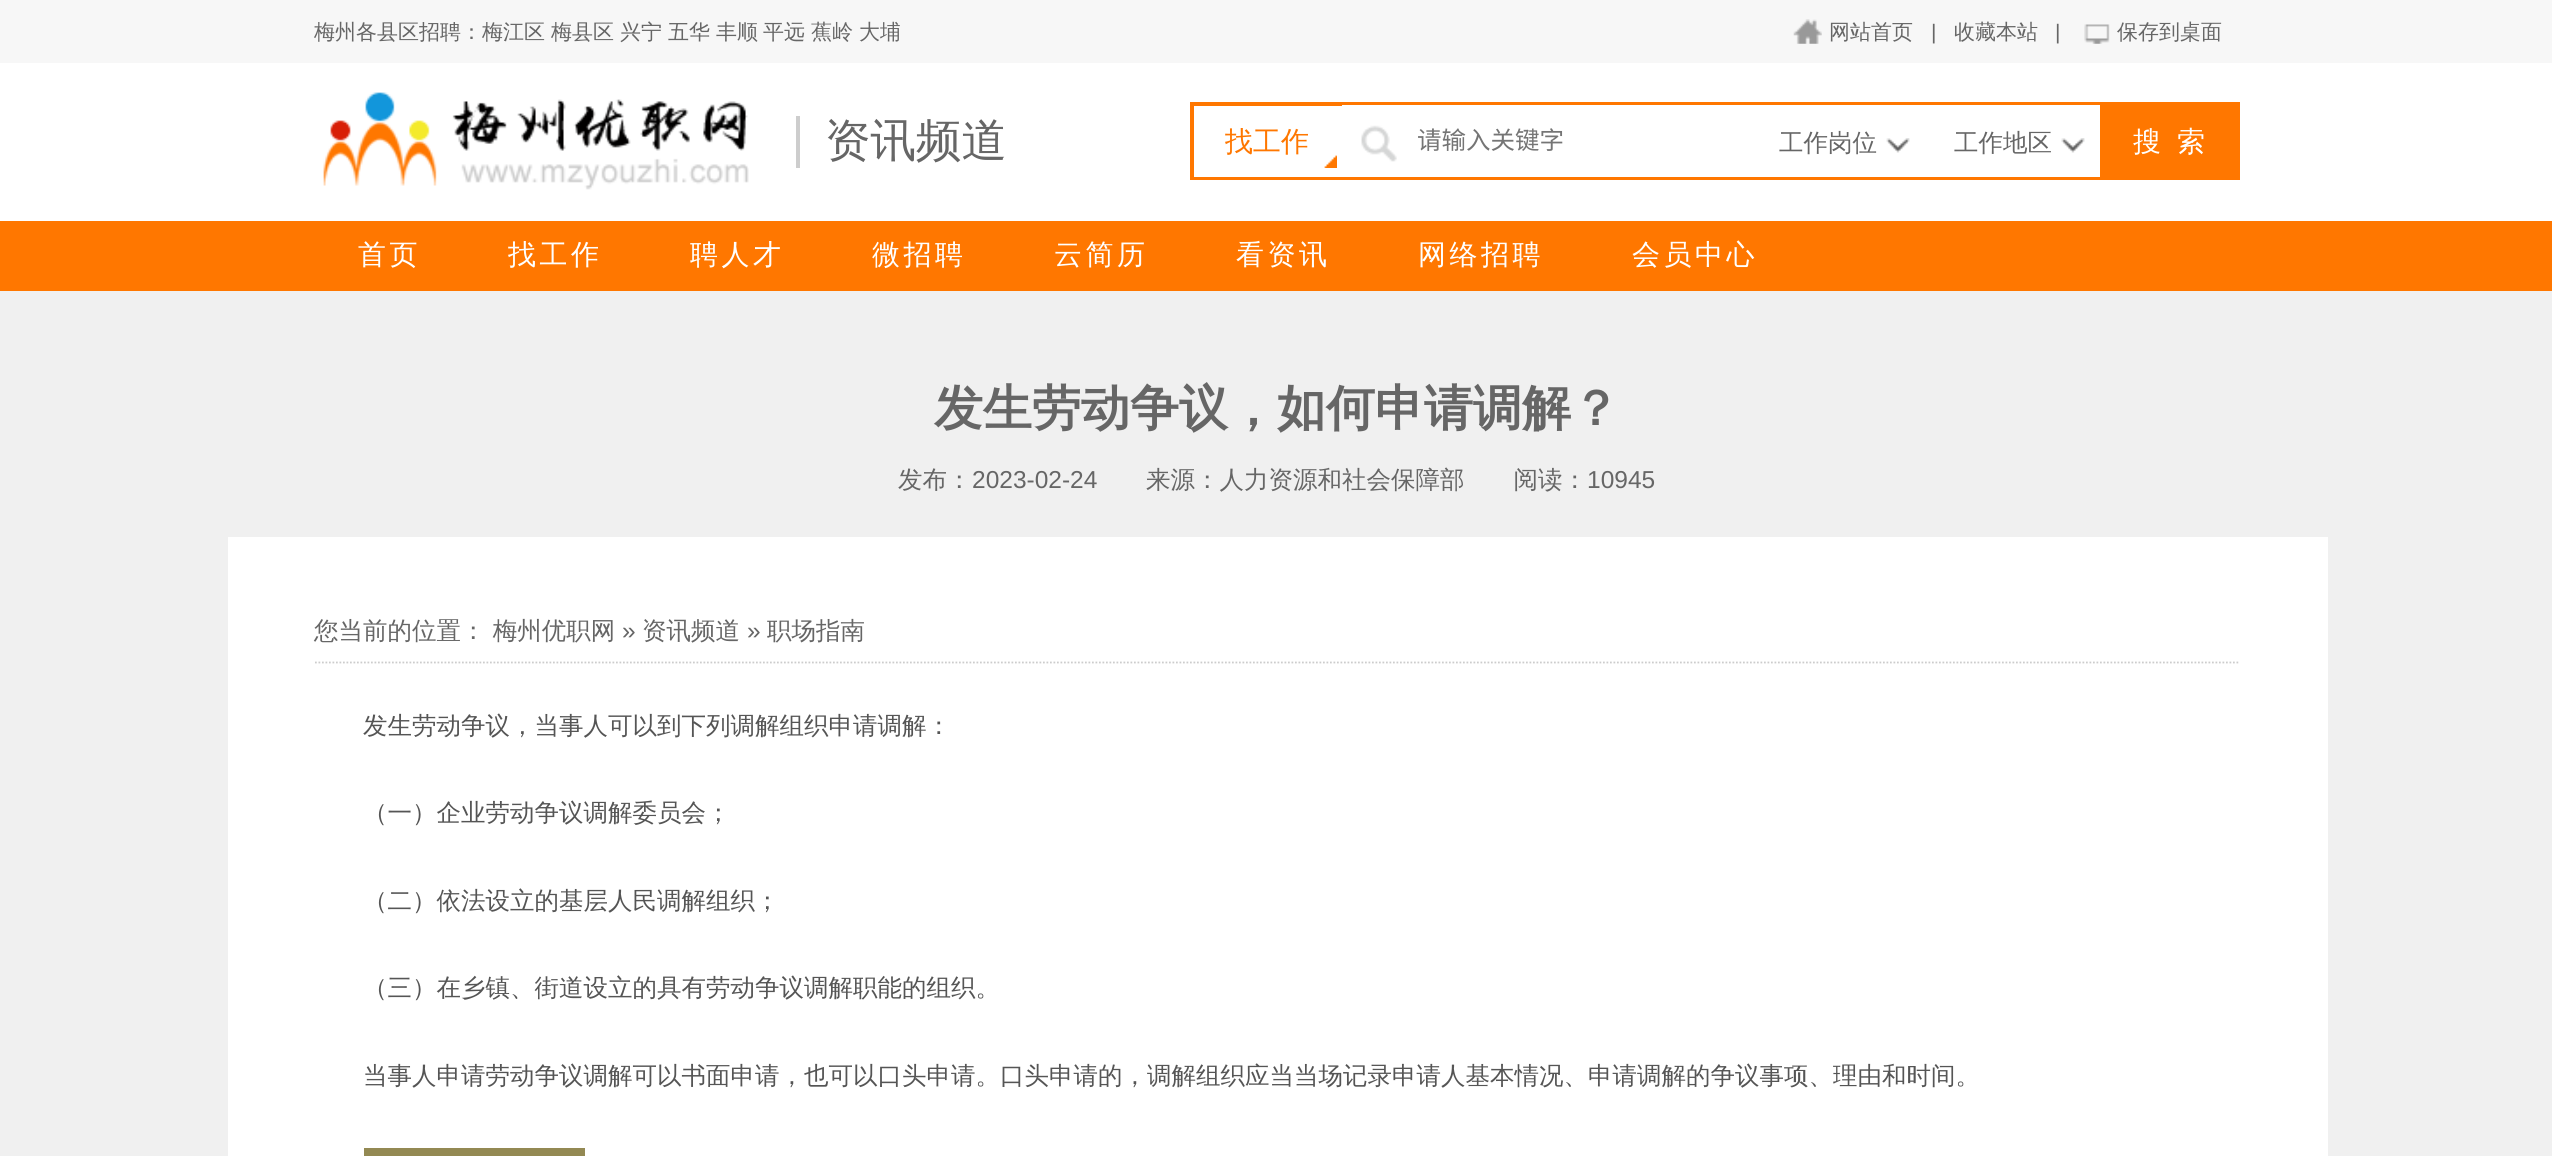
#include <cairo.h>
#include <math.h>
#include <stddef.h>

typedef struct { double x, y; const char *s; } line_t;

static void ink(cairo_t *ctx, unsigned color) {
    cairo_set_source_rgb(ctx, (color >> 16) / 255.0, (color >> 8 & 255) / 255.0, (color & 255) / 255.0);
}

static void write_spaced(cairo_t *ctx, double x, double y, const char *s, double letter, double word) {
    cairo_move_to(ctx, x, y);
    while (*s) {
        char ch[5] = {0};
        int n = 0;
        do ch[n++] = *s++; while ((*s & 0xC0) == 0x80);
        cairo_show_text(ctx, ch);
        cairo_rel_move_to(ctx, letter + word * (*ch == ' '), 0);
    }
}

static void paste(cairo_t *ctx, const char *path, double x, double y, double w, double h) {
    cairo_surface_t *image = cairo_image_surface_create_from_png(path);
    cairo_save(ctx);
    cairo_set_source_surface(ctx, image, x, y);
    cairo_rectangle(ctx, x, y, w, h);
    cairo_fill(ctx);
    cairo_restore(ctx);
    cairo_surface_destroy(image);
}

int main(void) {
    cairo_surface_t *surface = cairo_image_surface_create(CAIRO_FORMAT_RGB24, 2552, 1156);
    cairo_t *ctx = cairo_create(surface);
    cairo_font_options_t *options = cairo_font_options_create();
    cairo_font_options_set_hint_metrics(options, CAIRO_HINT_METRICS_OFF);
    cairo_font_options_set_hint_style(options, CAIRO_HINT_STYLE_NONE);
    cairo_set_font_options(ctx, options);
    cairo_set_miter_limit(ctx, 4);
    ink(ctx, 0xF0F0F0);
    cairo_paint(ctx);
    ink(ctx, 0xF7F7F7);
    cairo_rectangle(ctx, 0, 0, 2552, 63);
    cairo_fill(ctx);
    cairo_select_font_face(ctx, "WenQuanYi Zen Hei Medium", CAIRO_FONT_SLANT_NORMAL, CAIRO_FONT_WEIGHT_NORMAL);
    cairo_set_font_size(ctx, 21);
    ink(ctx, 0x666666);
    {
        static const line_t items[] = {
            {314, 39, "梅州各县区招聘：梅江区"},
            {551, 39, "梅县区"},
            {620, 39, "兴宁"},
            {668, 39, "五华"},
            {716, 39, "丰顺"},
            {763, 39, "平远"},
            {811, 39, "蕉岭"},
            {859, 39, "大埔"},
        };
        for (size_t i = 0; i < sizeof items / sizeof *items; i++) {
            cairo_move_to(ctx, items[i].x, items[i].y);
            cairo_show_text(ctx, items[i].s);
        }
    }
    paste(ctx, "media/1.png", 1793, 19, 29, 25);
    cairo_move_to(ctx, 1829, 39);
    cairo_show_text(ctx, "网站首页");
    cairo_select_font_face(ctx, "Liberation Sans", CAIRO_FONT_SLANT_NORMAL, CAIRO_FONT_WEIGHT_NORMAL);
    cairo_move_to(ctx, 1931, 39);
    cairo_show_text(ctx, "|");
    cairo_select_font_face(ctx, "WenQuanYi Zen Hei Medium", CAIRO_FONT_SLANT_NORMAL, CAIRO_FONT_WEIGHT_NORMAL);
    cairo_move_to(ctx, 1954, 39);
    cairo_show_text(ctx, "收藏本站");
    cairo_select_font_face(ctx, "Liberation Sans", CAIRO_FONT_SLANT_NORMAL, CAIRO_FONT_WEIGHT_NORMAL);
    cairo_move_to(ctx, 2055, 39);
    cairo_show_text(ctx, "|");
    paste(ctx, "media/2.png", 2084, 24, 26, 20);
    cairo_select_font_face(ctx, "WenQuanYi Zen Hei Medium", CAIRO_FONT_SLANT_NORMAL, CAIRO_FONT_WEIGHT_NORMAL);
    cairo_move_to(ctx, 2117, 39);
    cairo_show_text(ctx, "保存到桌面");
    ink(ctx, 0xFFFFFF);
    cairo_rectangle(ctx, 0, 63, 2552, 158);
    cairo_fill(ctx);
    paste(ctx, "media/3.png", 323, 92, 426, 98);
    ink(ctx, 0xCDCDCD);
    cairo_rectangle(ctx, 796, 116, 4, 52);
    cairo_fill(ctx);
    cairo_set_font_size(ctx, 45.5);
    ink(ctx, 0x666666);
    cairo_move_to(ctx, 825, 156);
    cairo_show_text(ctx, "资讯频道");
    ink(ctx, 0xFF7700);
    cairo_rectangle(ctx, 1190, 102, 1050, 78);
    cairo_fill(ctx);
    ink(ctx, 0xFFFFFF);
    cairo_rectangle(ctx, 1194, 106, 148, 71);
    cairo_fill(ctx);
    cairo_set_font_size(ctx, 28);
    ink(ctx, 0xFF7700);
    cairo_move_to(ctx, 1225, 151);
    cairo_show_text(ctx, "找工作");
    paste(ctx, "media/4.png", 1324, 155, 13, 13);
    ink(ctx, 0xFFFFFF);
    cairo_rectangle(ctx, 1342, 105, 758, 72);
    cairo_fill(ctx);
    paste(ctx, "media/5.png", 1361, 125, 36, 37);
    cairo_select_font_face(ctx, "Noto Sans CJK SC", CAIRO_FONT_SLANT_NORMAL, CAIRO_FONT_WEIGHT_NORMAL);
    cairo_set_font_size(ctx, 24.5);
    ink(ctx, 0x757575);
    cairo_move_to(ctx, 1417, 149);
    cairo_show_text(ctx, "请输入关键字");
    cairo_select_font_face(ctx, "WenQuanYi Zen Hei Medium", CAIRO_FONT_SLANT_NORMAL, CAIRO_FONT_WEIGHT_NORMAL);
    ink(ctx, 0x666666);
    cairo_move_to(ctx, 1779, 151);
    cairo_show_text(ctx, "工作岗位");
    paste(ctx, "media/6.png", 1886, 138, 24, 15);
    cairo_move_to(ctx, 1954, 151);
    cairo_show_text(ctx, "工作地区");
    paste(ctx, "media/7.png", 2061, 138, 24, 15);
    cairo_set_font_size(ctx, 28);
    ink(ctx, 0xFFFFFF);
    cairo_move_to(ctx, 2133, 151);
    cairo_show_text(ctx, "搜");
    cairo_move_to(ctx, 2177, 151);
    cairo_show_text(ctx, "索");
    ink(ctx, 0xFF7700);
    cairo_rectangle(ctx, 0, 221, 2552, 70);
    cairo_fill(ctx);
    ink(ctx, 0xFFFFFF);
    {
        static const line_t items[] = {
            {358, 264, "首页"},
            {508, 264, "找工作"},
            {690, 264, "聘人才"},
            {872, 264, "微招聘"},
            {1054, 264, "云简历"},
            {1236, 264, "看资讯"},
            {1418, 264, "网络招聘"},
            {1632, 264, "会员中心"},
        };
        for (size_t i = 0; i < sizeof items / sizeof *items; i++) {
            write_spaced(ctx, items[i].x, items[i].y, items[i].s, 3.5, 0);
        }
    }
    cairo_select_font_face(ctx, "WenQuanYi Zen Hei", CAIRO_FONT_SLANT_NORMAL, CAIRO_FONT_WEIGHT_BOLD);
    cairo_set_font_size(ctx, 49);
    ink(ctx, 0x666666);
    cairo_move_to(ctx, 934, 425);
    cairo_show_text(ctx, "发生劳动争议，如何申请调解？");
    cairo_select_font_face(ctx, "WenQuanYi Zen Hei Medium", CAIRO_FONT_SLANT_NORMAL, CAIRO_FONT_WEIGHT_NORMAL);
    cairo_set_font_size(ctx, 24.5);
    cairo_move_to(ctx, 898, 488);
    cairo_show_text(ctx, "发布：");
    cairo_select_font_face(ctx, "Liberation Sans", CAIRO_FONT_SLANT_NORMAL, CAIRO_FONT_WEIGHT_NORMAL);
    cairo_move_to(ctx, 972, 488);
    cairo_show_text(ctx, "2023-02-24");
    cairo_select_font_face(ctx, "WenQuanYi Zen Hei Medium", CAIRO_FONT_SLANT_NORMAL, CAIRO_FONT_WEIGHT_NORMAL);
    cairo_move_to(ctx, 1146, 488);
    cairo_show_text(ctx, "来源：人力资源和社会保障部　　阅读：");
    cairo_select_font_face(ctx, "Liberation Sans", CAIRO_FONT_SLANT_NORMAL, CAIRO_FONT_WEIGHT_NORMAL);
    cairo_move_to(ctx, 1587, 488);
    cairo_show_text(ctx, "10945");
    ink(ctx, 0xFFFFFF);
    cairo_rectangle(ctx, 228, 537, 2100, 619);
    cairo_fill(ctx);
    cairo_new_path(ctx);
    cairo_move_to(ctx, 315, 662.5);
    cairo_line_to(ctx, 2240, 662.5);
    ink(ctx, 0xCCCCCC);
    cairo_set_line_width(ctx, 1.8);
    cairo_set_dash(ctx, (double[]){1.75, 1.75}, 2, 0);
    cairo_stroke(ctx);
    cairo_select_font_face(ctx, "WenQuanYi Zen Hei Medium", CAIRO_FONT_SLANT_NORMAL, CAIRO_FONT_WEIGHT_NORMAL);
    ink(ctx, 0x666666);
    cairo_move_to(ctx, 314, 639);
    cairo_show_text(ctx, "您当前的位置： 梅州优职网");
    cairo_select_font_face(ctx, "Liberation Sans", CAIRO_FONT_SLANT_NORMAL, CAIRO_FONT_WEIGHT_NORMAL);
    cairo_move_to(ctx, 622, 639);
    cairo_show_text(ctx, "»");
    cairo_select_font_face(ctx, "WenQuanYi Zen Hei Medium", CAIRO_FONT_SLANT_NORMAL, CAIRO_FONT_WEIGHT_NORMAL);
    cairo_move_to(ctx, 642, 639);
    cairo_show_text(ctx, "资讯频道");
    cairo_select_font_face(ctx, "Liberation Sans", CAIRO_FONT_SLANT_NORMAL, CAIRO_FONT_WEIGHT_NORMAL);
    cairo_move_to(ctx, 747, 639);
    cairo_show_text(ctx, "»");
    cairo_select_font_face(ctx, "WenQuanYi Zen Hei Medium", CAIRO_FONT_SLANT_NORMAL, CAIRO_FONT_WEIGHT_NORMAL);
    cairo_move_to(ctx, 767, 639);
    cairo_show_text(ctx, "职场指南");
    ink(ctx, 0x555555);
    {
        static const line_t items[] = {
            {363, 734, "发生劳动争议，当事人可以到下列调解组织申请调解："},
            {363, 821, "（一）企业劳动争议调解委员会；"},
            {363, 909, "（二）依法设立的基层人民调解组织；"},
            {363, 996, "（三）在乡镇、街道设立的具有劳动争议调解职能的组织。"},
            {363, 1084, "当事人申请劳动争议调解可以书面申请，也可以口头申请。口头申请的，调解组织应当当场记录申请人基本情况、申请调解的争议事项、理由和时间。"},
        };
        for (size_t i = 0; i < sizeof items / sizeof *items; i++) {
            cairo_move_to(ctx, items[i].x, items[i].y);
            cairo_show_text(ctx, items[i].s);
        }
    }
    ink(ctx, 0x938953);
    cairo_rectangle(ctx, 364, 1148, 221, 8);
    cairo_fill(ctx);
    cairo_surface_write_to_png(surface, "image.png");
    cairo_font_options_destroy(options);
    cairo_destroy(ctx);
    cairo_surface_destroy(surface);
    return 0;
}
